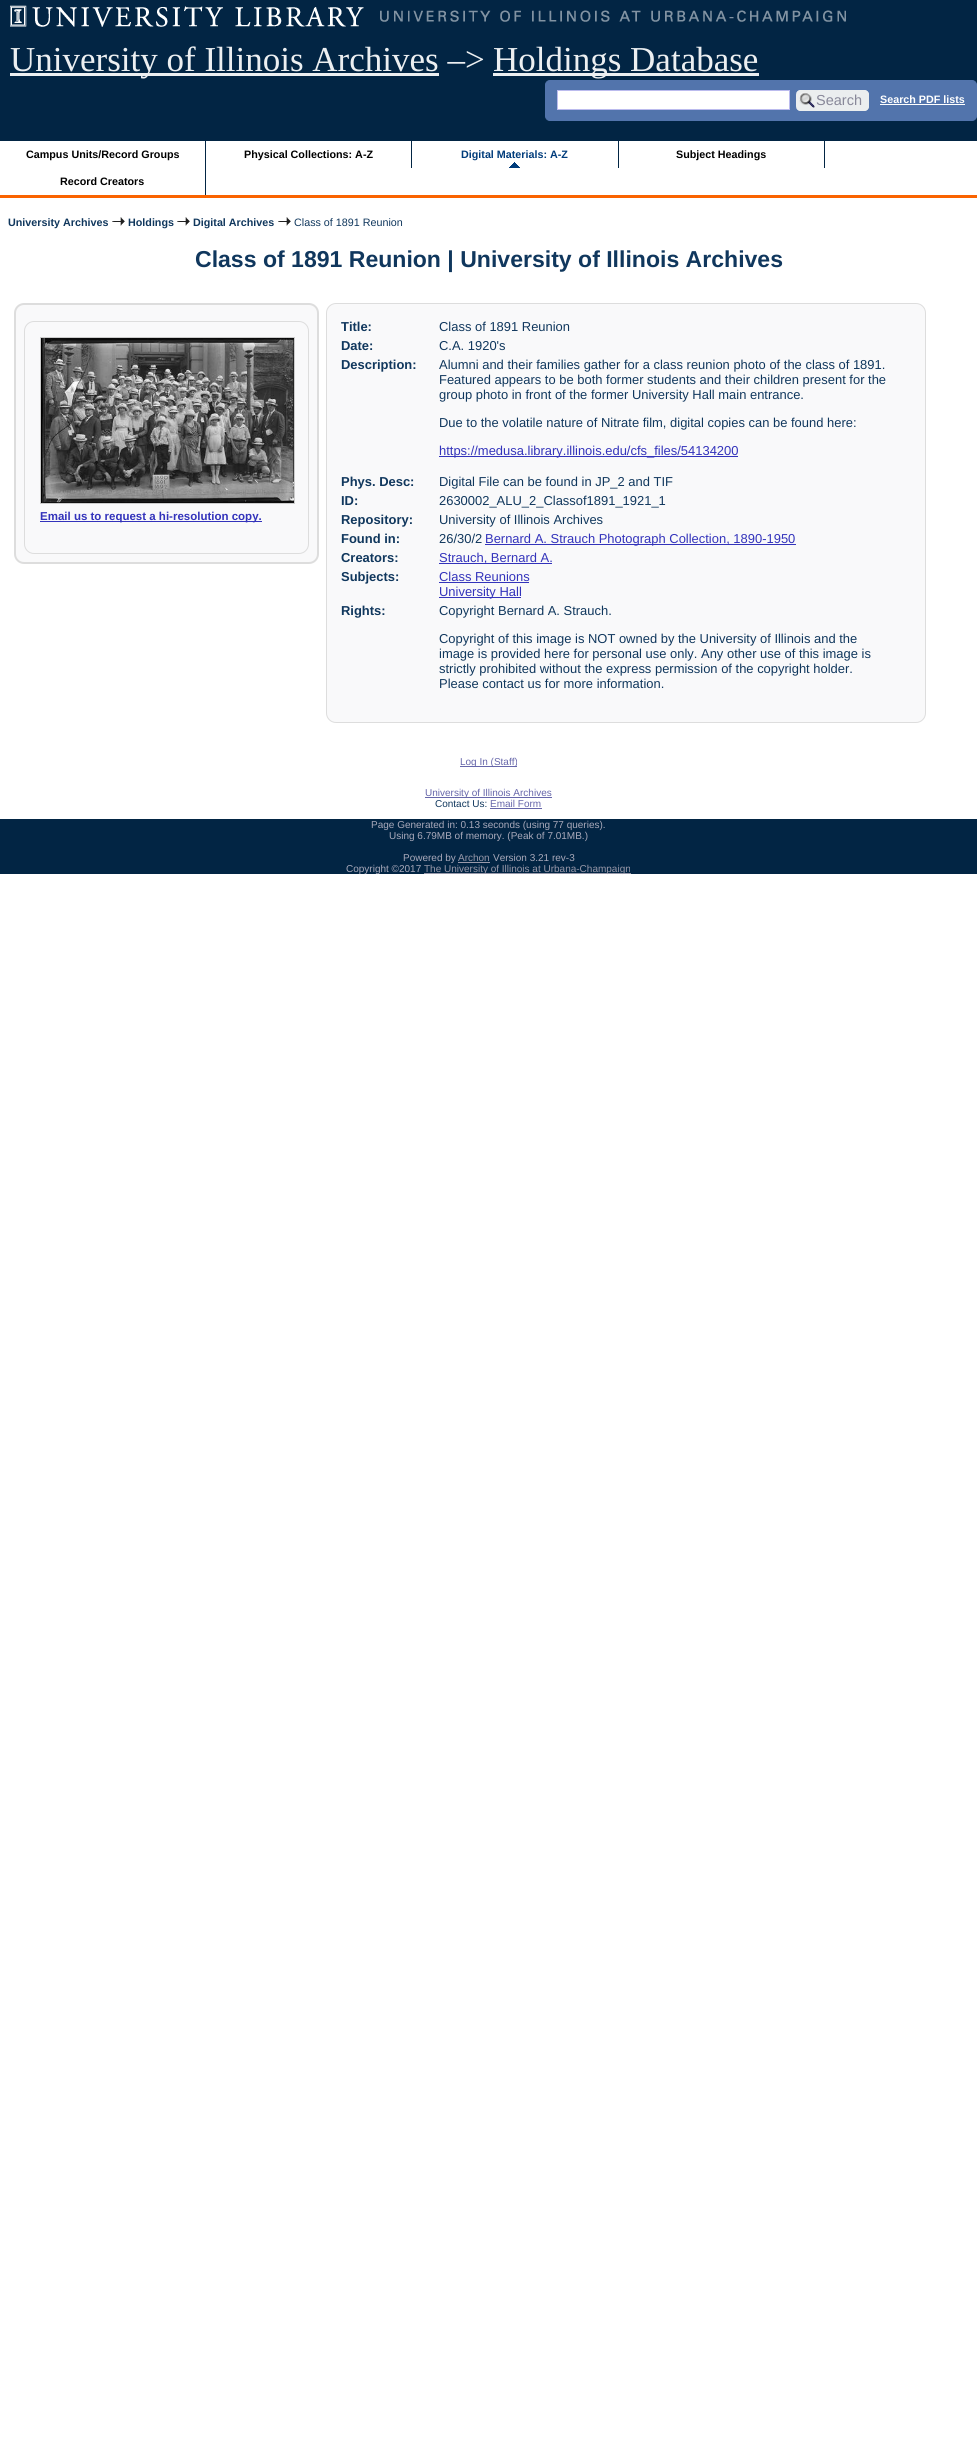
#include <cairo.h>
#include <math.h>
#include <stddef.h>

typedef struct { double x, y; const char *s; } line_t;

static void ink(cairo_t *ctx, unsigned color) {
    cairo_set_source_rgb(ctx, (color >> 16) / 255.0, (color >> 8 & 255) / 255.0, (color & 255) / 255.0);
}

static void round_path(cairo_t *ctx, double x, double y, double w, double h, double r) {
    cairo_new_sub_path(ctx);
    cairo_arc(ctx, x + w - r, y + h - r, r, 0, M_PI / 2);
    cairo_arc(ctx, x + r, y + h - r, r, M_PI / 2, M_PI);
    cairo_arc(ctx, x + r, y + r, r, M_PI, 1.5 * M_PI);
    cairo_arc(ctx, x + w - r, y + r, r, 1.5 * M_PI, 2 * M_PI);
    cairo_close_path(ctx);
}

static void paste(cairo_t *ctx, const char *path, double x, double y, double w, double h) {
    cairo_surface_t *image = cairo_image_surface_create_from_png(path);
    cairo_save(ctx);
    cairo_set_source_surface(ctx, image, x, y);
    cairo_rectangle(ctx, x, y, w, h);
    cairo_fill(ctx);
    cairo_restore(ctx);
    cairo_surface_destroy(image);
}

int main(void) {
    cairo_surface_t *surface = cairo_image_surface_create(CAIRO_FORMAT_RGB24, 977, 2444);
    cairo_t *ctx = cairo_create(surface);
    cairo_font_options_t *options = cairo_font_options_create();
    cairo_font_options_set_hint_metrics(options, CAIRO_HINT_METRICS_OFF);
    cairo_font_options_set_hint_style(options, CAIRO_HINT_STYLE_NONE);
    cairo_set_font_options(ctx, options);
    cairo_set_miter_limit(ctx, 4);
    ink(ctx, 0xFFFFFF);
    cairo_paint(ctx);
    ink(ctx, 0x022544);
    cairo_rectangle(ctx, 0, 0, 977, 141);
    cairo_fill(ctx);
    paste(ctx, "media/1.png", 10, 5, 836, 22);
    ink(ctx, 0xFA6300);
    cairo_rectangle(ctx, 0, 195, 977, 3);
    cairo_fill(ctx);
    ink(ctx, 0xECEFF1);
    cairo_rectangle(ctx, 10, 73, 429, 3);
    cairo_fill(ctx);
    cairo_select_font_face(ctx, "Liberation Serif", CAIRO_FONT_SLANT_NORMAL, CAIRO_FONT_WEIGHT_NORMAL);
    cairo_set_font_size(ctx, 35);
    cairo_move_to(ctx, 10, 71);
    cairo_show_text(ctx, "University of Illinois Archives –>");
    cairo_rectangle(ctx, 493, 73, 266, 3);
    cairo_fill(ctx);
    cairo_move_to(ctx, 493, 71);
    cairo_show_text(ctx, "Holdings Database");
    ink(ctx, 0x5274AC);
    round_path(ctx, 545.5, 80.5, 431, 40, 4.5);
    cairo_fill_preserve(ctx);
    cairo_set_line_width(ctx, 1);
    cairo_stroke(ctx);
    ink(ctx, 0xFFFFFF);
    cairo_rectangle(ctx, 557.5, 90.5, 232, 19);
    cairo_fill_preserve(ctx);
    ink(ctx, 0xBBBBEE);
    cairo_stroke(ctx);
    ink(ctx, 0xEBEEEF);
    round_path(ctx, 796, 90, 73, 21, 5);
    cairo_fill(ctx);
    paste(ctx, "media/2.png", 799, 92, 16, 16);
    cairo_set_fill_rule(ctx, CAIRO_FILL_RULE_EVEN_ODD);
    cairo_new_path(ctx);
    cairo_move_to(ctx, 801, 90);
    cairo_line_to(ctx, 864, 90);
    cairo_curve_to(ctx, 867, 90, 869, 92, 869, 95);
    cairo_line_to(ctx, 869, 106);
    cairo_curve_to(ctx, 869, 109, 867, 111, 864, 111);
    cairo_line_to(ctx, 801, 111);
    cairo_curve_to(ctx, 798, 111, 796, 109, 796, 106);
    cairo_line_to(ctx, 796, 95);
    cairo_curve_to(ctx, 796, 92, 798, 90, 801, 90);
    cairo_close_path(ctx);
    cairo_move_to(ctx, 801, 91);
    cairo_line_to(ctx, 864, 91);
    cairo_curve_to(ctx, 866, 91, 868, 93, 868, 95);
    cairo_line_to(ctx, 868, 106);
    cairo_curve_to(ctx, 868, 108, 866, 110, 864, 110);
    cairo_line_to(ctx, 801, 110);
    cairo_curve_to(ctx, 798, 110, 796, 108, 796, 106);
    cairo_line_to(ctx, 796, 95);
    cairo_curve_to(ctx, 796, 93, 798, 91, 801, 91);
    cairo_close_path(ctx);
    cairo_fill(ctx);
    cairo_select_font_face(ctx, "Liberation Sans", CAIRO_FONT_SLANT_NORMAL, CAIRO_FONT_WEIGHT_NORMAL);
    cairo_set_font_size(ctx, 14.5);
    ink(ctx, 0x888899);
    cairo_move_to(ctx, 816, 105);
    cairo_show_text(ctx, "Search");
    cairo_select_font_face(ctx, "Liberation Sans", CAIRO_FONT_SLANT_NORMAL, CAIRO_FONT_WEIGHT_BOLD);
    cairo_set_font_size(ctx, 10.75);
    ink(ctx, 0xFFFFFF);
    cairo_move_to(ctx, 880, 103);
    cairo_show_text(ctx, "Search PDF lists");
    cairo_rectangle(ctx, 880, 104, 85, 1);
    cairo_fill(ctx);
    ink(ctx, 0x022544);
    cairo_rectangle(ctx, 205, 141, 1, 54);
    cairo_fill(ctx);
    ink(ctx, 0x000000);
    cairo_move_to(ctx, 26, 158);
    cairo_show_text(ctx, "Campus Units/Record Groups");
    ink(ctx, 0x022544);
    cairo_rectangle(ctx, 411, 141, 1, 27);
    cairo_fill(ctx);
    ink(ctx, 0x000000);
    cairo_move_to(ctx, 244, 158);
    cairo_show_text(ctx, "Physical Collections: A-Z");
    paste(ctx, "media/3.png", 509, 162, 11, 6);
    ink(ctx, 0x022544);
    cairo_rectangle(ctx, 618, 141, 1, 27);
    cairo_fill(ctx);
    ink(ctx, 0x003C7B);
    cairo_move_to(ctx, 461, 158);
    cairo_show_text(ctx, "Digital Materials: A-Z");
    ink(ctx, 0x022544);
    cairo_rectangle(ctx, 824, 141, 1, 27);
    cairo_fill(ctx);
    ink(ctx, 0x000000);
    cairo_move_to(ctx, 676, 158);
    cairo_show_text(ctx, "Subject Headings");
    cairo_move_to(ctx, 60, 185);
    cairo_show_text(ctx, "Record Creators");
    ink(ctx, 0x10375D);
    cairo_move_to(ctx, 8, 226);
    cairo_show_text(ctx, "University Archives");
    paste(ctx, "media/4.png", 112, 217, 13, 9);
    cairo_move_to(ctx, 128, 226);
    cairo_show_text(ctx, "Holdings");
    paste(ctx, "media/4.png", 177, 217, 13, 9);
    cairo_move_to(ctx, 193, 226);
    cairo_show_text(ctx, "Digital Archives");
    paste(ctx, "media/4.png", 278, 217, 13, 9);
    cairo_select_font_face(ctx, "Liberation Sans", CAIRO_FONT_SLANT_NORMAL, CAIRO_FONT_WEIGHT_NORMAL);
    cairo_move_to(ctx, 294, 226);
    cairo_show_text(ctx, "Class of 1891 Reunion");
    cairo_select_font_face(ctx, "Liberation Sans", CAIRO_FONT_SLANT_NORMAL, CAIRO_FONT_WEIGHT_BOLD);
    cairo_set_font_size(ctx, 23.05);
    cairo_move_to(ctx, 195, 267);
    cairo_show_text(ctx, "Class of 1891 Reunion | University of Illinois Archives");
    ink(ctx, 0xF9F9FA);
    round_path(ctx, 15, 304, 303, 259, 9);
    cairo_fill_preserve(ctx);
    ink(ctx, 0xDDDDDD);
    cairo_set_line_width(ctx, 2);
    cairo_stroke(ctx);
    round_path(ctx, 24.5, 321.5, 284, 232, 9.5);
    cairo_set_line_width(ctx, 1);
    cairo_stroke(ctx);
    cairo_rectangle(ctx, 40.5, 337.5, 254, 166);
    ink(ctx, 0xCCCCCC);
    cairo_stroke(ctx);
    paste(ctx, "media/5.png", 41, 338, 253, 165);
    ink(ctx, 0x3333BB);
    cairo_rectangle(ctx, 40, 521, 222, 1);
    cairo_fill(ctx);
    cairo_set_font_size(ctx, 11.5);
    cairo_move_to(ctx, 40, 520);
    cairo_show_text(ctx, "Email us to request a hi-resolution copy.");
    ink(ctx, 0xF9F9FA);
    round_path(ctx, 326.5, 303.5, 599, 419, 9.5);
    cairo_fill_preserve(ctx);
    ink(ctx, 0xDDDDDD);
    cairo_stroke(ctx);
    cairo_set_font_size(ctx, 12.95);
    ink(ctx, 0x10375D);
    cairo_move_to(ctx, 341, 331);
    cairo_show_text(ctx, "Title:");
    cairo_select_font_face(ctx, "Liberation Sans", CAIRO_FONT_SLANT_NORMAL, CAIRO_FONT_WEIGHT_NORMAL);
    cairo_move_to(ctx, 439, 331);
    cairo_show_text(ctx, "Class of 1891 Reunion");
    cairo_select_font_face(ctx, "Liberation Sans", CAIRO_FONT_SLANT_NORMAL, CAIRO_FONT_WEIGHT_BOLD);
    cairo_move_to(ctx, 341, 350);
    cairo_show_text(ctx, "Date:");
    cairo_select_font_face(ctx, "Liberation Sans", CAIRO_FONT_SLANT_NORMAL, CAIRO_FONT_WEIGHT_NORMAL);
    cairo_move_to(ctx, 439, 350);
    cairo_show_text(ctx, "C.A. 1920's");
    cairo_select_font_face(ctx, "Liberation Sans", CAIRO_FONT_SLANT_NORMAL, CAIRO_FONT_WEIGHT_BOLD);
    cairo_move_to(ctx, 341, 369);
    cairo_show_text(ctx, "Description:");
    cairo_select_font_face(ctx, "Liberation Sans", CAIRO_FONT_SLANT_NORMAL, CAIRO_FONT_WEIGHT_NORMAL);
    {
        static const line_t items[] = {
            {439, 369, "Alumni and their families gather for a class reunion photo of the class of 1891."},
            {439, 384, "Featured appears to be both former students and their children present for the"},
            {439, 399, "group photo in front of the former University Hall main entrance."},
            {439, 427, "Due to the volatile nature of Nitrate film, digital copies can be found here:"},
        };
        for (size_t i = 0; i < sizeof items / sizeof *items; i++) {
            cairo_move_to(ctx, items[i].x, items[i].y);
            cairo_show_text(ctx, items[i].s);
        }
    }
    ink(ctx, 0x3333BB);
    cairo_rectangle(ctx, 439, 456, 299, 1);
    cairo_fill(ctx);
    cairo_move_to(ctx, 439, 455);
    cairo_show_text(ctx, "https://medusa.library.illinois.edu/cfs_files/54134200");
    cairo_select_font_face(ctx, "Liberation Sans", CAIRO_FONT_SLANT_NORMAL, CAIRO_FONT_WEIGHT_BOLD);
    ink(ctx, 0x10375D);
    cairo_move_to(ctx, 341, 486);
    cairo_show_text(ctx, "Phys. Desc:");
    cairo_select_font_face(ctx, "Liberation Sans", CAIRO_FONT_SLANT_NORMAL, CAIRO_FONT_WEIGHT_NORMAL);
    cairo_move_to(ctx, 439, 486);
    cairo_show_text(ctx, "Digital File can be found in JP_2 and TIF");
    cairo_select_font_face(ctx, "Liberation Sans", CAIRO_FONT_SLANT_NORMAL, CAIRO_FONT_WEIGHT_BOLD);
    cairo_move_to(ctx, 341, 505);
    cairo_show_text(ctx, "ID:");
    cairo_select_font_face(ctx, "Liberation Sans", CAIRO_FONT_SLANT_NORMAL, CAIRO_FONT_WEIGHT_NORMAL);
    cairo_move_to(ctx, 439, 505);
    cairo_show_text(ctx, "2630002_ALU_2_Classof1891_1921_1");
    cairo_select_font_face(ctx, "Liberation Sans", CAIRO_FONT_SLANT_NORMAL, CAIRO_FONT_WEIGHT_BOLD);
    cairo_move_to(ctx, 341, 524);
    cairo_show_text(ctx, "Repository:");
    cairo_select_font_face(ctx, "Liberation Sans", CAIRO_FONT_SLANT_NORMAL, CAIRO_FONT_WEIGHT_NORMAL);
    cairo_move_to(ctx, 439, 524);
    cairo_show_text(ctx, "University of Illinois Archives");
    cairo_select_font_face(ctx, "Liberation Sans", CAIRO_FONT_SLANT_NORMAL, CAIRO_FONT_WEIGHT_BOLD);
    cairo_move_to(ctx, 341, 543);
    cairo_show_text(ctx, "Found in:");
    cairo_select_font_face(ctx, "Liberation Sans", CAIRO_FONT_SLANT_NORMAL, CAIRO_FONT_WEIGHT_NORMAL);
    cairo_move_to(ctx, 439, 543);
    cairo_show_text(ctx, "26/30/2");
    ink(ctx, 0x3333BB);
    cairo_rectangle(ctx, 485, 544, 311, 1);
    cairo_fill(ctx);
    cairo_move_to(ctx, 485, 543);
    cairo_show_text(ctx, "Bernard A. Strauch Photograph Collection, 1890-1950");
    cairo_select_font_face(ctx, "Liberation Sans", CAIRO_FONT_SLANT_NORMAL, CAIRO_FONT_WEIGHT_BOLD);
    ink(ctx, 0x10375D);
    cairo_move_to(ctx, 341, 562);
    cairo_show_text(ctx, "Creators:");
    ink(ctx, 0x3333BB);
    cairo_rectangle(ctx, 439, 563, 113, 1);
    cairo_fill(ctx);
    cairo_select_font_face(ctx, "Liberation Sans", CAIRO_FONT_SLANT_NORMAL, CAIRO_FONT_WEIGHT_NORMAL);
    cairo_move_to(ctx, 439, 562);
    cairo_show_text(ctx, "Strauch, Bernard A.");
    cairo_select_font_face(ctx, "Liberation Sans", CAIRO_FONT_SLANT_NORMAL, CAIRO_FONT_WEIGHT_BOLD);
    ink(ctx, 0x10375D);
    cairo_move_to(ctx, 341, 581);
    cairo_show_text(ctx, "Subjects:");
    cairo_select_font_face(ctx, "Liberation Sans", CAIRO_FONT_SLANT_NORMAL, CAIRO_FONT_WEIGHT_NORMAL);
    ink(ctx, 0x3333BB);
    cairo_move_to(ctx, 439, 581);
    cairo_show_text(ctx, "Class Reunions");
    cairo_rectangle(ctx, 439, 582, 90, 1);
    cairo_fill(ctx);
    cairo_rectangle(ctx, 439, 597, 82, 1);
    cairo_fill(ctx);
    cairo_move_to(ctx, 439, 596);
    cairo_show_text(ctx, "University Hall");
    cairo_select_font_face(ctx, "Liberation Sans", CAIRO_FONT_SLANT_NORMAL, CAIRO_FONT_WEIGHT_BOLD);
    ink(ctx, 0x10375D);
    cairo_move_to(ctx, 341, 615);
    cairo_show_text(ctx, "Rights:");
    cairo_select_font_face(ctx, "Liberation Sans", CAIRO_FONT_SLANT_NORMAL, CAIRO_FONT_WEIGHT_NORMAL);
    {
        static const line_t items[] = {
            {439, 615, "Copyright Bernard A. Strauch."},
            {439, 643, "Copyright of this image is NOT owned by the University of Illinois and the"},
            {439, 658, "image is provided here for personal use only. Any other use of this image is"},
            {439, 673, "strictly prohibited without the express permission of the copyright holder."},
            {439, 688, "Please contact us for more information."},
        };
        for (size_t i = 0; i < sizeof items / sizeof *items; i++) {
            cairo_move_to(ctx, items[i].x, items[i].y);
            cairo_show_text(ctx, items[i].s);
        }
    }
    ink(ctx, 0x6666AA);
    cairo_rectangle(ctx, 460, 766, 57, 1);
    cairo_fill(ctx);
    cairo_set_font_size(ctx, 10);
    cairo_move_to(ctx, 460, 765);
    cairo_show_text(ctx, "Log In (Staff)");
    cairo_rectangle(ctx, 425, 797, 127, 1);
    cairo_fill(ctx);
    cairo_move_to(ctx, 425, 796);
    cairo_show_text(ctx, "University of Illinois Archives");
    ink(ctx, 0x10375D);
    cairo_move_to(ctx, 435, 807);
    cairo_show_text(ctx, "Contact Us:");
    ink(ctx, 0x6666AA);
    cairo_move_to(ctx, 490, 807);
    cairo_show_text(ctx, "Email Form");
    cairo_rectangle(ctx, 490, 808, 52, 1);
    cairo_fill(ctx);
    ink(ctx, 0x022544);
    cairo_rectangle(ctx, 0, 819, 977, 55);
    cairo_fill(ctx);
    ink(ctx, 0xAAAABB);
    {
        static const line_t items[] = {
            {371, 828, "Page Generated in: 0.13 seconds (using 77 queries)."},
            {389, 839, "Using 6.79MB of memory. (Peak of 7.01MB.)"},
            {403, 861, "Powered by"},
        };
        for (size_t i = 0; i < sizeof items / sizeof *items; i++) {
            cairo_move_to(ctx, items[i].x, items[i].y);
            cairo_show_text(ctx, items[i].s);
        }
    }
    ink(ctx, 0x9999AA);
    cairo_move_to(ctx, 458, 861);
    cairo_show_text(ctx, "Archon");
    cairo_rectangle(ctx, 458, 862, 32, 1);
    cairo_fill(ctx);
    ink(ctx, 0xAAAABB);
    cairo_move_to(ctx, 493, 861);
    cairo_show_text(ctx, "Version 3.21 rev-3");
    cairo_move_to(ctx, 346, 872);
    cairo_show_text(ctx, "Copyright ©2017");
    ink(ctx, 0x9999AA);
    cairo_rectangle(ctx, 424, 873, 207, 1);
    cairo_fill(ctx);
    cairo_move_to(ctx, 424, 872);
    cairo_show_text(ctx, "The University of Illinois at Urbana-Champaign");
    cairo_surface_write_to_png(surface, "image.png");
    cairo_font_options_destroy(options);
    cairo_destroy(ctx);
    cairo_surface_destroy(surface);
    return 0;
}
